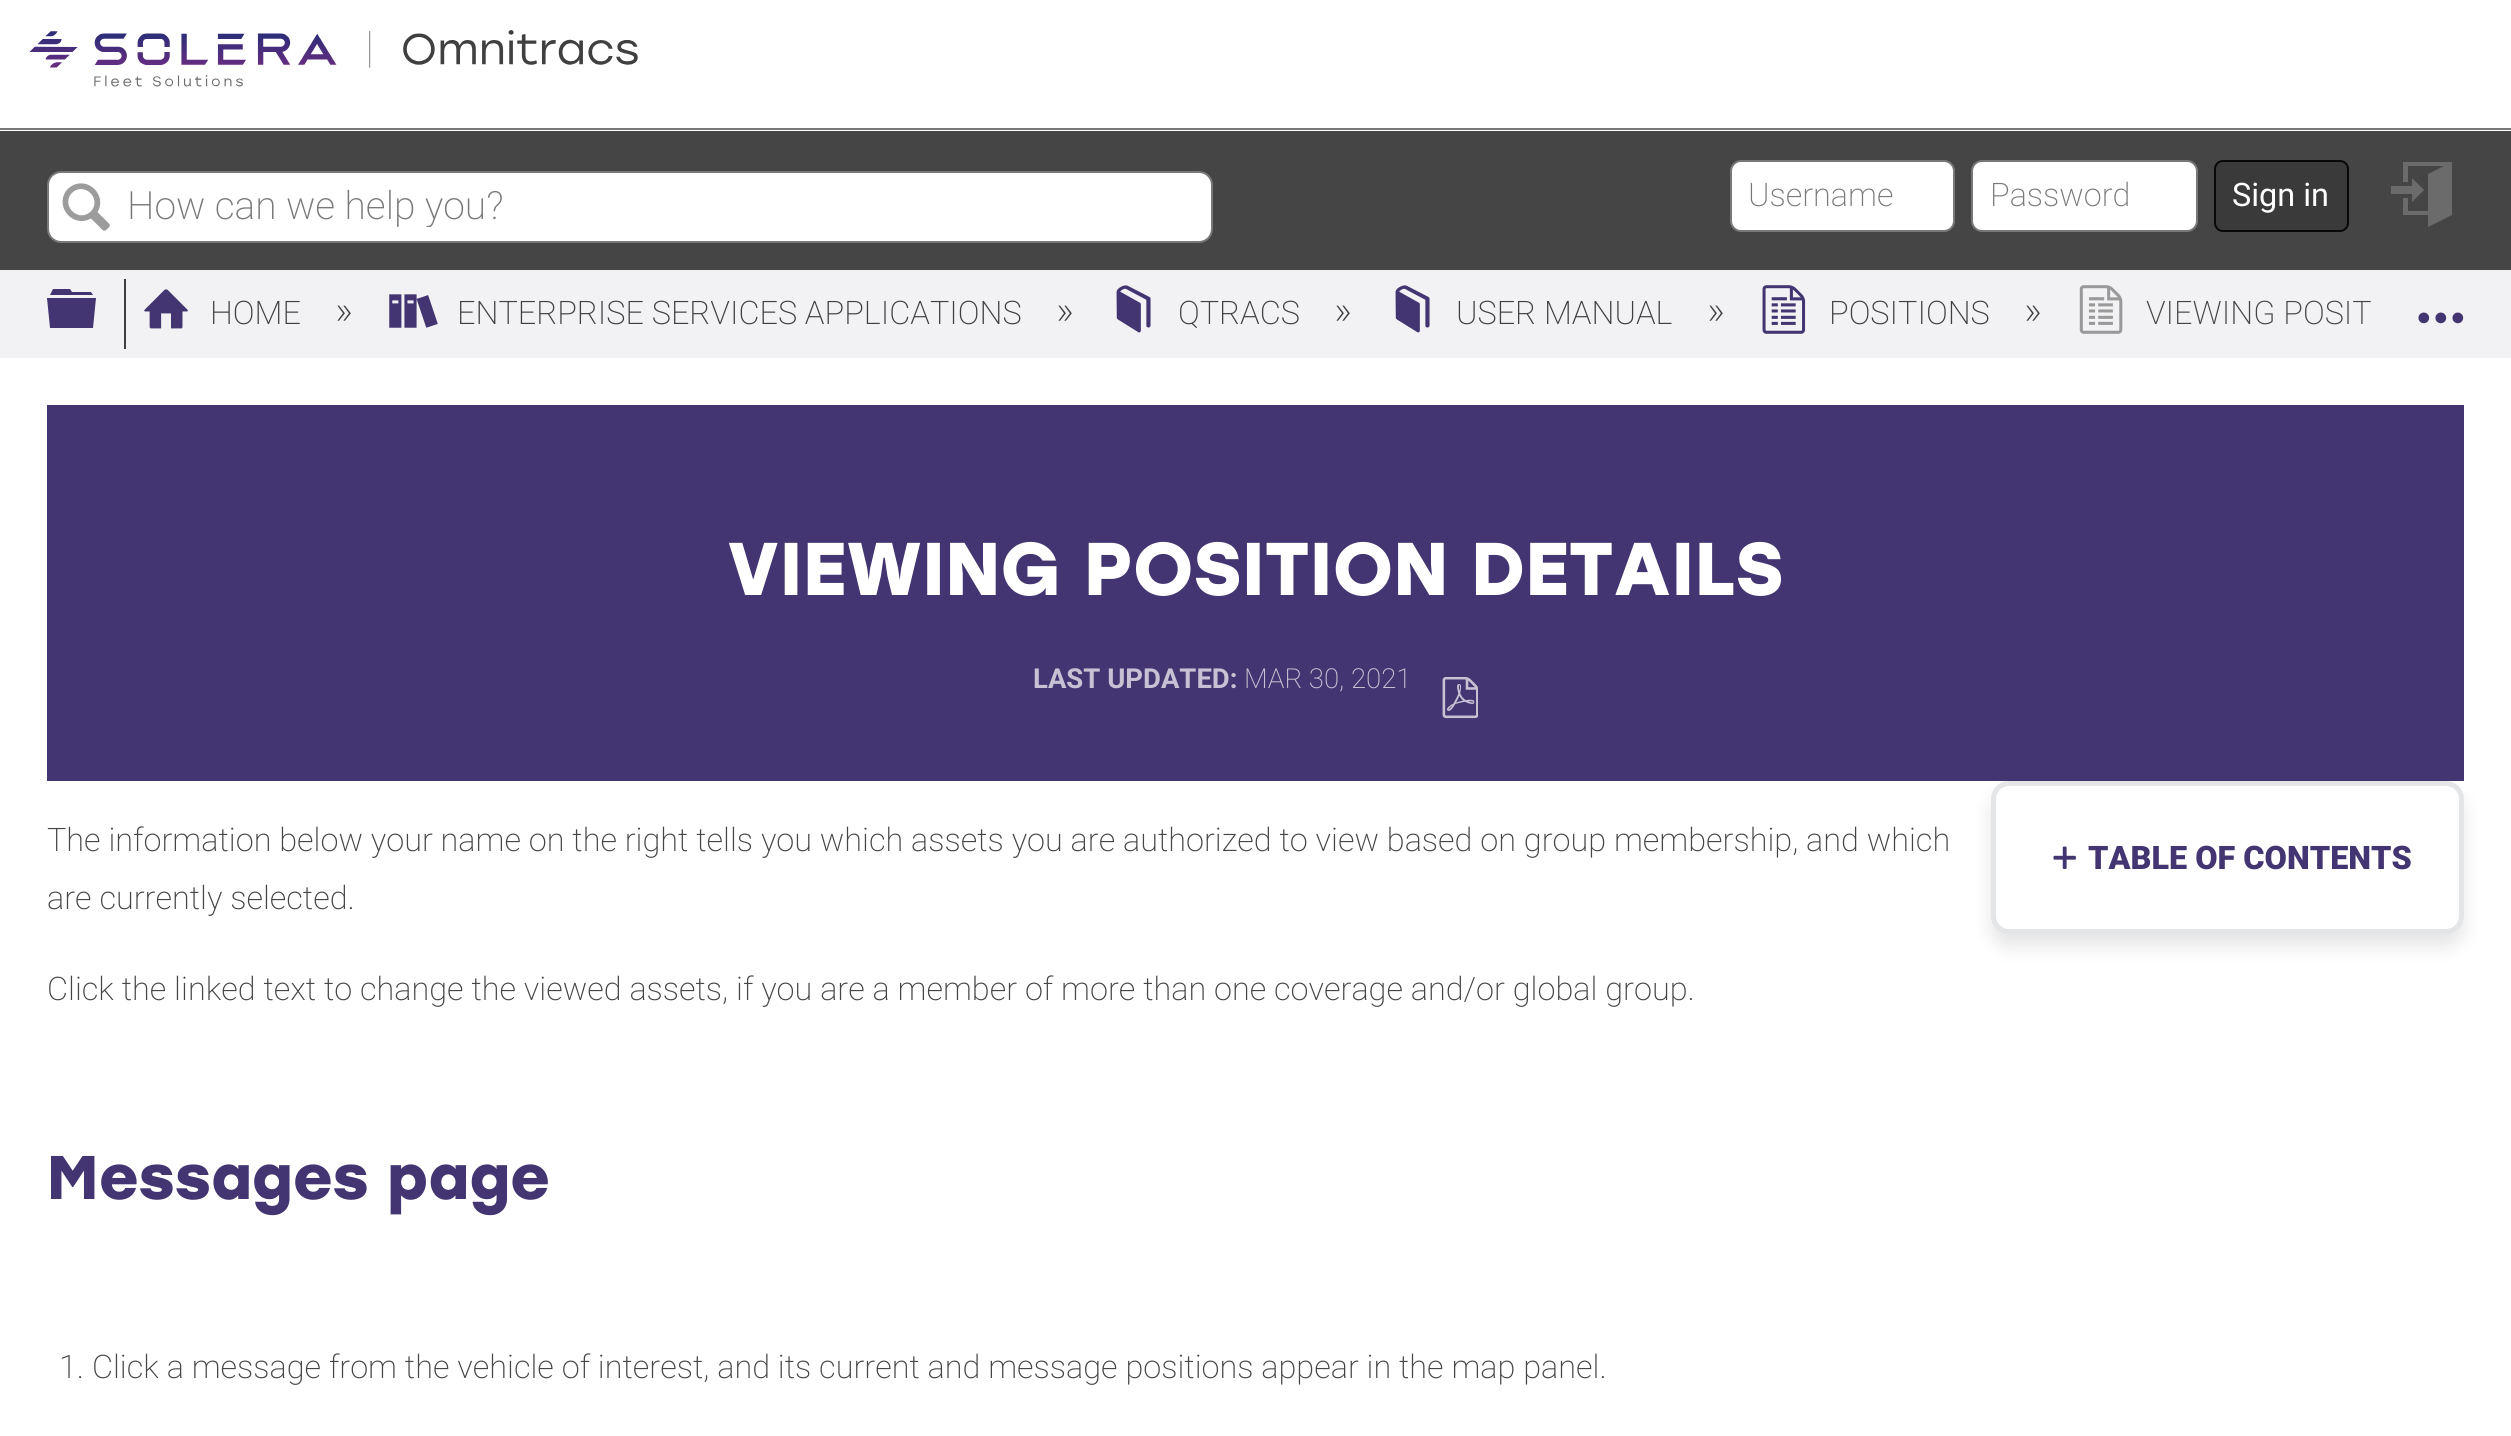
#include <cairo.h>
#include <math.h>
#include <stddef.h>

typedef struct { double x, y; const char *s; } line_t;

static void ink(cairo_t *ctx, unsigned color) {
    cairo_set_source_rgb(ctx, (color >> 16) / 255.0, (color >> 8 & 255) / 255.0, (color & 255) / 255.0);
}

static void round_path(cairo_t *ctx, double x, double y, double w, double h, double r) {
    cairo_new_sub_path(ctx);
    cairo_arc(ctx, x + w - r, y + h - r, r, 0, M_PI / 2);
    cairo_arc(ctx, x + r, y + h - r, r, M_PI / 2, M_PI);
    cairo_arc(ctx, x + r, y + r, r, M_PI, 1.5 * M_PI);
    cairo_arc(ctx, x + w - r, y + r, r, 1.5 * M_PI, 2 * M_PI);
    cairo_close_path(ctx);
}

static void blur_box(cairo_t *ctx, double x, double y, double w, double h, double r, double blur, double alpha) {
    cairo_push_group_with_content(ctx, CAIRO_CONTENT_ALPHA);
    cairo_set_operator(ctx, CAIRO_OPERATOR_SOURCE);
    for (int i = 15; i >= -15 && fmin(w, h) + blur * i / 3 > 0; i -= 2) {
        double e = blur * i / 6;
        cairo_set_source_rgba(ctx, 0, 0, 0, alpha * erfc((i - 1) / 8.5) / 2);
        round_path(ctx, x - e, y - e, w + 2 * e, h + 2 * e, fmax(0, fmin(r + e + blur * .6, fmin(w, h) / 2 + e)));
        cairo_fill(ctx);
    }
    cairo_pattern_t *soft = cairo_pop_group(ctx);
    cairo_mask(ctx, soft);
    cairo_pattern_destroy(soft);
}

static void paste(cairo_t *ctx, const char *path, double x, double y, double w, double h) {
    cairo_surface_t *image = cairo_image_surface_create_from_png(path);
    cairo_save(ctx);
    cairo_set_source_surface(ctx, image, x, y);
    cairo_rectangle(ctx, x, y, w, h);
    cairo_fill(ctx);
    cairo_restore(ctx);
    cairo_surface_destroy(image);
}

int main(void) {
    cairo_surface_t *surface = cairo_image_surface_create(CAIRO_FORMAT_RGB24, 2511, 1436);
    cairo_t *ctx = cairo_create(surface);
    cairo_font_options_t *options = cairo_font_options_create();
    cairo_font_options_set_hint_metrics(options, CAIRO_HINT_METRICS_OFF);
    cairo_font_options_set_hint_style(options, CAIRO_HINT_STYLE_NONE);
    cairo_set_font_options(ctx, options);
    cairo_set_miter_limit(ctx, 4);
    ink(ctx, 0xFFFFFF);
    cairo_paint(ctx);
    paste(ctx, "media/1.png", 29, 30, 609, 57);
    ink(ctx, 0x454545);
    cairo_rectangle(ctx, 0, 131, 2511, 139);
    cairo_fill(ctx);
    ink(ctx, 0x787878);
    cairo_rectangle(ctx, 0, 128, 2511, 2);
    cairo_fill(ctx);
    ink(ctx, 0xFFFFFF);
    round_path(ctx, 48, 172, 1164, 70, 13);
    cairo_fill_preserve(ctx);
    ink(ctx, 0x787878);
    cairo_stroke(ctx);
    paste(ctx, "media/2.png", 62, 183, 48, 48);
    cairo_save(ctx);
    cairo_rectangle(ctx, 108, 182, 1085, 45);
    cairo_clip(ctx);
    cairo_select_font_face(ctx, "Roboto ExtraLight", CAIRO_FONT_SLANT_NORMAL, CAIRO_FONT_WEIGHT_NORMAL);
    cairo_set_font_size(ctx, 38.9);
    ink(ctx, 0x797979);
    cairo_move_to(ctx, 127, 219);
    cairo_show_text(ctx, "How can we help you?");
    cairo_restore(ctx);
    ink(ctx, 0xFFFFFF);
    round_path(ctx, 1731, 161, 223, 70, 10);
    cairo_fill_preserve(ctx);
    ink(ctx, 0x787878);
    cairo_stroke(ctx);
    cairo_select_font_face(ctx, "Roboto ExtraLight", CAIRO_FONT_SLANT_NORMAL, CAIRO_FONT_WEIGHT_NORMAL);
    cairo_set_font_size(ctx, 32.4);
    ink(ctx, 0x797979);
    cairo_move_to(ctx, 1748, 206);
    cairo_show_text(ctx, "Username");
    ink(ctx, 0xFFFFFF);
    round_path(ctx, 1972, 161, 225, 70, 10);
    cairo_fill_preserve(ctx);
    ink(ctx, 0x787878);
    cairo_stroke(ctx);
    ink(ctx, 0x797979);
    cairo_move_to(ctx, 1990, 206);
    cairo_show_text(ctx, "Password");
    ink(ctx, 0x3A3A3A);
    round_path(ctx, 2215, 161, 133, 70, 8);
    cairo_fill_preserve(ctx);
    ink(ctx, 0x080808);
    cairo_stroke(ctx);
    cairo_select_font_face(ctx, "Roboto", CAIRO_FONT_SLANT_NORMAL, CAIRO_FONT_WEIGHT_NORMAL);
    ink(ctx, 0xFFFFFF);
    cairo_move_to(ctx, 2232, 206);
    cairo_show_text(ctx, "Sign in");
    ink(ctx, 0x6B6B6B);
    cairo_new_path(ctx);
    cairo_move_to(ctx, 2412, 194);
    cairo_line_to(ctx, 2391, 194);
    cairo_line_to(ctx, 2391, 186);
    cairo_line_to(ctx, 2412, 186);
    cairo_line_to(ctx, 2412, 178);
    cairo_line_to(ctx, 2424, 190);
    cairo_line_to(ctx, 2412, 202);
    cairo_close_path(ctx);
    cairo_move_to(ctx, 2452, 162);
    cairo_line_to(ctx, 2452, 215);
    cairo_line_to(ctx, 2428, 227);
    cairo_line_to(ctx, 2428, 215);
    cairo_line_to(ctx, 2403, 215);
    cairo_line_to(ctx, 2403, 198);
    cairo_line_to(ctx, 2408, 198);
    cairo_line_to(ctx, 2408, 211);
    cairo_line_to(ctx, 2428, 211);
    cairo_line_to(ctx, 2428, 174);
    cairo_line_to(ctx, 2444, 166);
    cairo_line_to(ctx, 2408, 166);
    cairo_line_to(ctx, 2408, 182);
    cairo_line_to(ctx, 2403, 182);
    cairo_line_to(ctx, 2403, 162);
    cairo_close_path(ctx);
    cairo_fill(ctx);
    ink(ctx, 0xF2F2F4);
    cairo_rectangle(ctx, 0, 270, 2511, 88);
    cairo_fill(ctx);
    ink(ctx, 0x423571);
    cairo_new_path(ctx);
    cairo_move_to(ctx, 47, 298);
    cairo_line_to(ctx, 96, 298);
    cairo_line_to(ctx, 93, 328);
    cairo_line_to(ctx, 50, 328);
    cairo_close_path(ctx);
    cairo_move_to(ctx, 91, 292);
    cairo_line_to(ctx, 93, 295);
    cairo_line_to(ctx, 50, 295);
    cairo_line_to(ctx, 53, 289);
    cairo_line_to(ctx, 70, 289);
    cairo_line_to(ctx, 72, 292);
    cairo_close_path(ctx);
    cairo_fill(ctx);
    ink(ctx, 0x3E3F3F);
    cairo_rectangle(ctx, 124, 279, 2, 70);
    cairo_fill(ctx);
    paste(ctx, "media/3.png", 144, 289, 44, 40);
    cairo_select_font_face(ctx, "Roboto ExtraLight", CAIRO_FONT_SLANT_NORMAL, CAIRO_FONT_WEIGHT_NORMAL);
    cairo_move_to(ctx, 210, 324);
    cairo_show_text(ctx, "HOME");
    cairo_set_font_size(ctx, 40);
    cairo_move_to(ctx, 335, 324);
    cairo_show_text(ctx, "»");
    paste(ctx, "media/4.png", 389, 294, 49, 34);
    cairo_set_font_size(ctx, 32.4);
    cairo_move_to(ctx, 457, 324);
    cairo_show_text(ctx, "ENTERPRISE SERVICES APPLICATIONS");
    cairo_set_font_size(ctx, 40);
    cairo_move_to(ctx, 1056, 324);
    cairo_show_text(ctx, "»");
    paste(ctx, "media/5.png", 1116, 285, 35, 48);
    cairo_set_font_size(ctx, 32.4);
    cairo_move_to(ctx, 1178, 324);
    cairo_show_text(ctx, "QTRACS");
    cairo_set_font_size(ctx, 40);
    cairo_move_to(ctx, 1334, 324);
    cairo_show_text(ctx, "»");
    paste(ctx, "media/5.png", 1395, 285, 35, 48);
    cairo_set_font_size(ctx, 32.4);
    cairo_move_to(ctx, 1456, 324);
    cairo_show_text(ctx, "USER MANUAL");
    cairo_set_font_size(ctx, 40);
    cairo_move_to(ctx, 1707, 324);
    cairo_show_text(ctx, "»");
    paste(ctx, "media/6.png", 1762, 285, 44, 49);
    cairo_set_font_size(ctx, 32.4);
    cairo_move_to(ctx, 1829, 324);
    cairo_show_text(ctx, "POSITIONS");
    cairo_set_font_size(ctx, 40);
    cairo_move_to(ctx, 2024, 324);
    cairo_show_text(ctx, "»");
    paste(ctx, "media/7.png", 2079, 285, 44, 49);
    cairo_set_font_size(ctx, 32.4);
    ink(ctx, 0x464544);
    cairo_move_to(ctx, 2146, 324);
    cairo_show_text(ctx, "VIEWING POSIT");
    paste(ctx, "media/8.png", 2418, 312, 46, 12);
    ink(ctx, 0x423571);
    cairo_rectangle(ctx, 47, 405, 2417, 376);
    cairo_fill(ctx);
    cairo_select_font_face(ctx, "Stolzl", CAIRO_FONT_SLANT_NORMAL, CAIRO_FONT_WEIGHT_BOLD);
    cairo_set_font_size(ctx, 74.5);
    ink(ctx, 0xFFFFFF);
    cairo_move_to(ctx, 727, 595);
    cairo_show_text(ctx, "VIEWING POSITION DETAILS");
    cairo_select_font_face(ctx, "Roboto", CAIRO_FONT_SLANT_NORMAL, CAIRO_FONT_WEIGHT_BOLD);
    cairo_set_font_size(ctx, 27.5);
    ink(ctx, 0xC6C2D4);
    cairo_move_to(ctx, 1033, 688);
    cairo_show_text(ctx, "LAST UPDATED:");
    cairo_select_font_face(ctx, "Roboto ExtraLight", CAIRO_FONT_SLANT_NORMAL, CAIRO_FONT_WEIGHT_NORMAL);
    cairo_move_to(ctx, 1244, 688);
    cairo_show_text(ctx, "MAR 30, 2021");
    paste(ctx, "media/9.png", 1442, 677, 36, 42);
    cairo_set_font_size(ctx, 32.4);
    ink(ctx, 0x464544);
    {
        static const line_t items[] = {
            {47, 851, "The information below your name on the right tells you which assets you are authorized to view based on group membership, and which"},
            {47, 909, "are currently selected."},
            {47, 1000, "Click the linked text to change the viewed assets, if you are a member of more than one coverage and/or global group."},
        };
        for (size_t i = 0; i < sizeof items / sizeof *items; i++) {
            cairo_move_to(ctx, items[i].x, items[i].y);
            cairo_show_text(ctx, items[i].s);
        }
    }
    cairo_select_font_face(ctx, "Stolzl", CAIRO_FONT_SLANT_NORMAL, CAIRO_FONT_WEIGHT_BOLD);
    cairo_set_font_size(ctx, 61.5);
    ink(ctx, 0x423571);
    cairo_move_to(ctx, 47, 1199);
    cairo_show_text(ctx, "Messages page");
    cairo_select_font_face(ctx, "Roboto ExtraLight", CAIRO_FONT_SLANT_NORMAL, CAIRO_FONT_WEIGHT_NORMAL);
    cairo_set_font_size(ctx, 32.4);
    ink(ctx, 0x464544);
    cairo_move_to(ctx, 59, 1378);
    cairo_show_text(ctx, "1. Click a message from the vehicle of interest, and its current and message positions appear in the map panel.");
    ink(ctx, 0x000000);
    blur_box(ctx, 1991, 794, 473, 153, 18, 9, 0.1);
    ink(ctx, 0xFFFFFF);
    round_path(ctx, 1993.5, 783.5, 468, 148, 15.5);
    cairo_fill_preserve(ctx);
    ink(ctx, 0xE4E5E6);
    cairo_set_line_width(ctx, 5);
    cairo_stroke(ctx);
    paste(ctx, "media/10.png", 2053, 846, 23, 23);
    cairo_select_font_face(ctx, "Roboto Black", CAIRO_FONT_SLANT_NORMAL, CAIRO_FONT_WEIGHT_NORMAL);
    ink(ctx, 0x423571);
    cairo_move_to(ctx, 2088, 869);
    cairo_show_text(ctx, "TABLE OF CONTENTS");
    cairo_surface_write_to_png(surface, "image.png");
    cairo_font_options_destroy(options);
    cairo_destroy(ctx);
    cairo_surface_destroy(surface);
    return 0;
}
